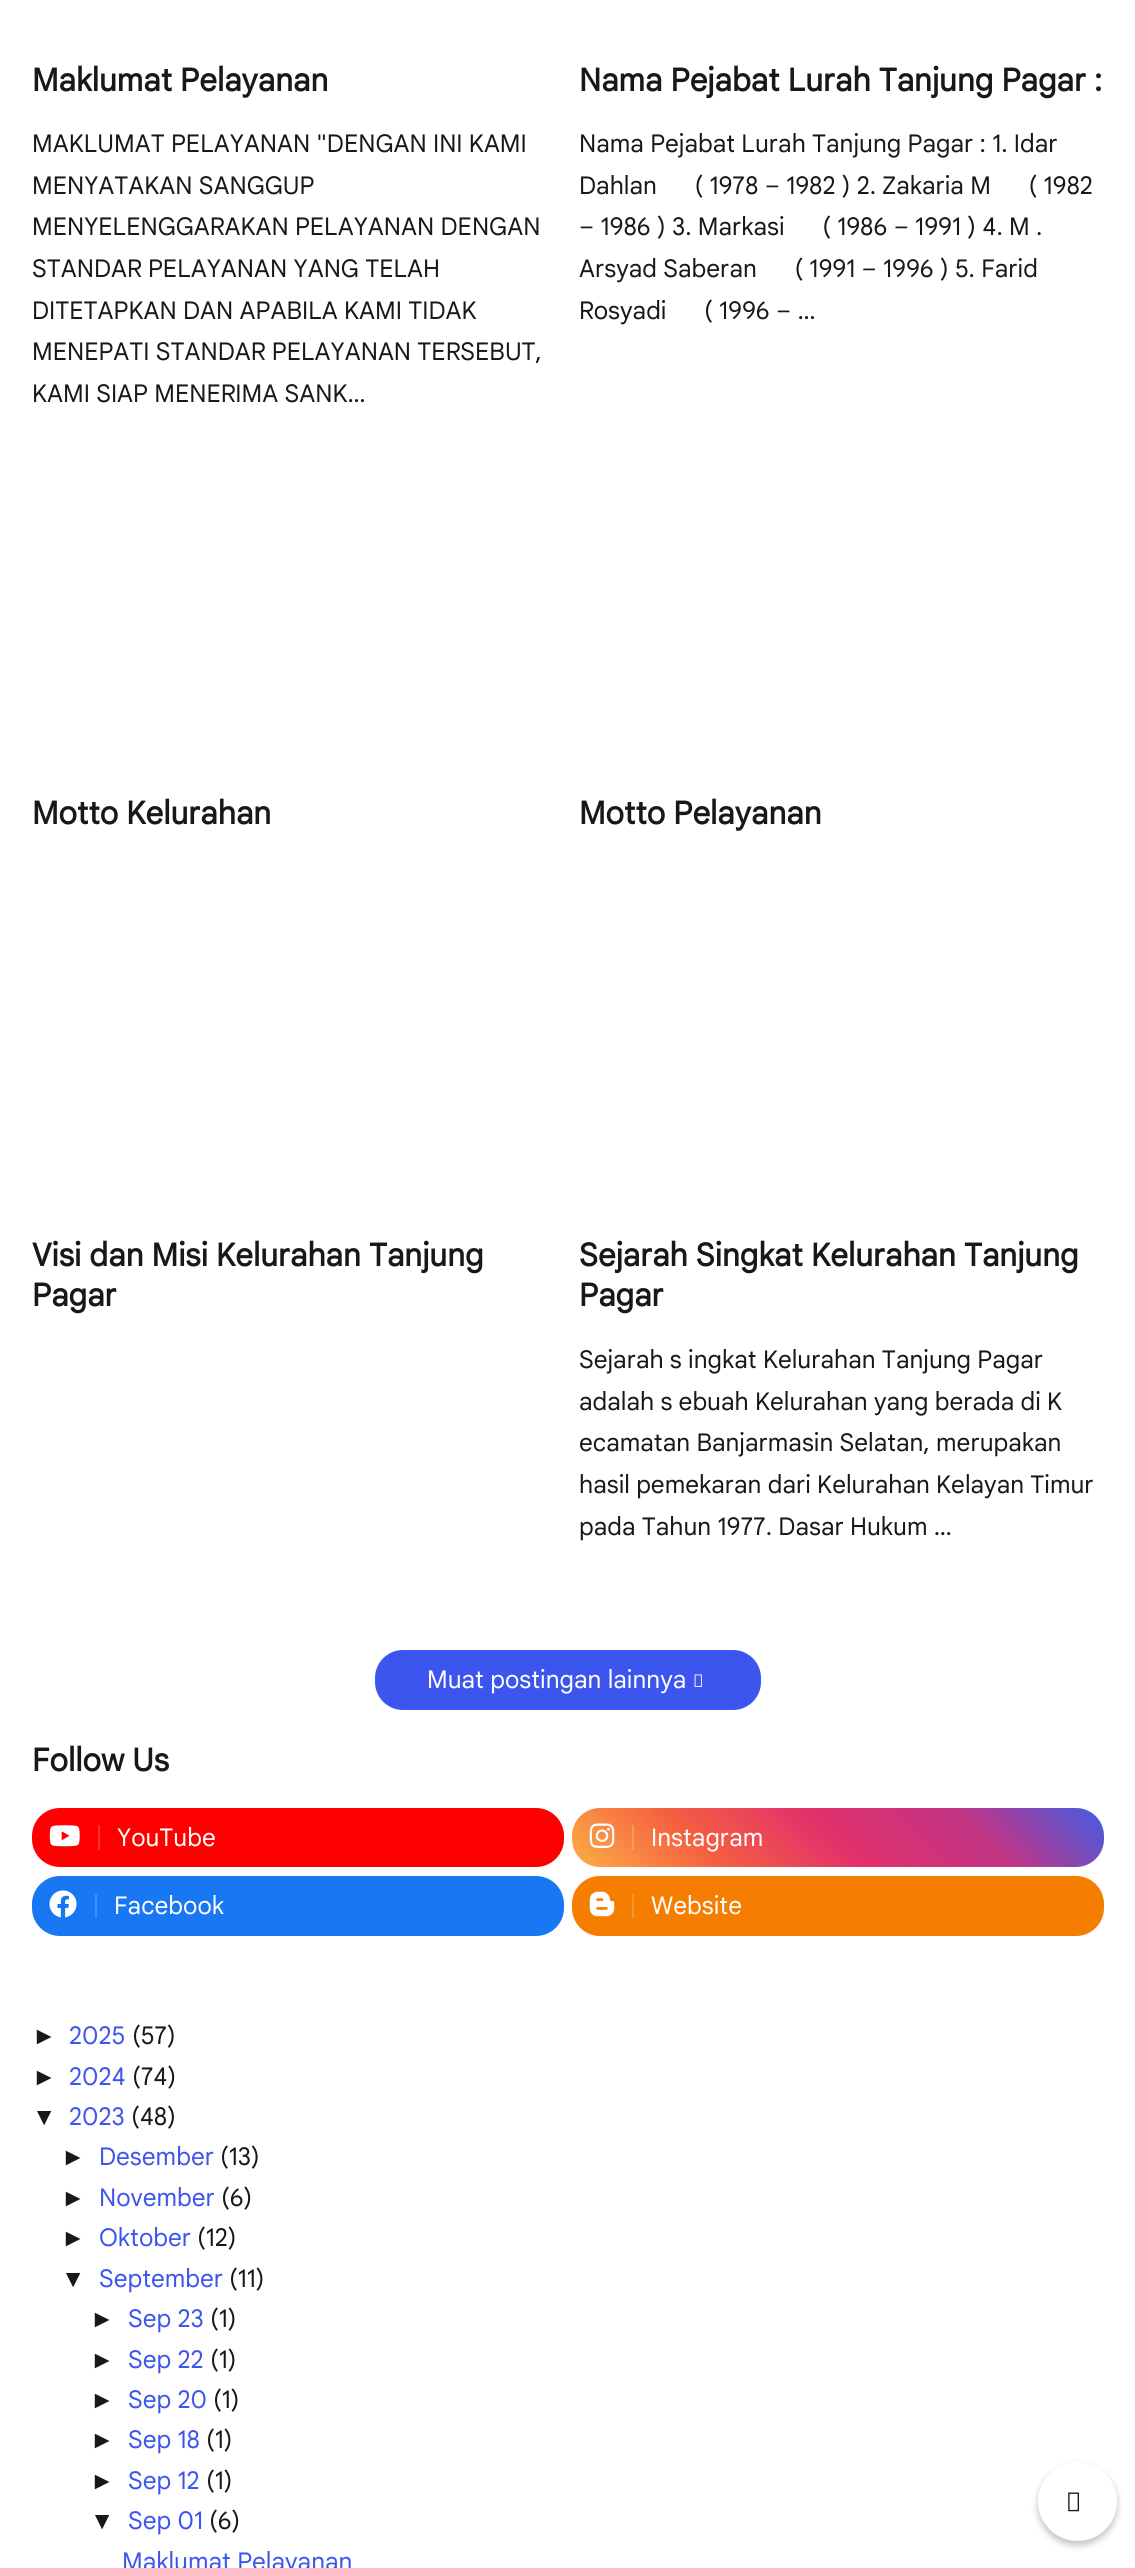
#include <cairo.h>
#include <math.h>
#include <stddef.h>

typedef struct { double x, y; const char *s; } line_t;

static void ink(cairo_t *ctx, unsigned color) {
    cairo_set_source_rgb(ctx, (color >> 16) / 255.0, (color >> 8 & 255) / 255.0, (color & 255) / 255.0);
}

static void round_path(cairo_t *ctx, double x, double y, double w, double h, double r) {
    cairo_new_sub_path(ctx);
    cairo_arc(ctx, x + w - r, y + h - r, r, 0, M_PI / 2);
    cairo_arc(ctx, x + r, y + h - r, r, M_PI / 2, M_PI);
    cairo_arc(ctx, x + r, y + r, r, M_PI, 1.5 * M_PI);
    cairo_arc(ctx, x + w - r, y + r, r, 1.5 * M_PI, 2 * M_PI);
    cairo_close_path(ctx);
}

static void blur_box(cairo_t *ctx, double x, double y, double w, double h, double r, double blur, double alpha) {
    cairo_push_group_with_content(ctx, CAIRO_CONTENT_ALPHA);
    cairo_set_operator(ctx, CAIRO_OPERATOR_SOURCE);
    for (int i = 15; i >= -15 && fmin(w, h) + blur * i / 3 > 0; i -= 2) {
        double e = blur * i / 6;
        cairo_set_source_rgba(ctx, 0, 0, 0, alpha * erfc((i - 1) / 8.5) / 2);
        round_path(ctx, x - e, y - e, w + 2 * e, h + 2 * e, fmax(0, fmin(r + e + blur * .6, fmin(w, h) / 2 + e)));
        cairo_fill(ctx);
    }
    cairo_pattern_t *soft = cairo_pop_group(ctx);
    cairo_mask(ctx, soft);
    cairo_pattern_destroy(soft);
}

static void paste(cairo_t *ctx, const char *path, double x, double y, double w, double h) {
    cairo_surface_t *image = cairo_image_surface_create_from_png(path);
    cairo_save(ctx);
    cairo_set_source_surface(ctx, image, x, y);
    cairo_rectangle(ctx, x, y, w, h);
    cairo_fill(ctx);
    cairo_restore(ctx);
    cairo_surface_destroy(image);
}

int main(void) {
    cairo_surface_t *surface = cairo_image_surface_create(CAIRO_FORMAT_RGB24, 1135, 2568);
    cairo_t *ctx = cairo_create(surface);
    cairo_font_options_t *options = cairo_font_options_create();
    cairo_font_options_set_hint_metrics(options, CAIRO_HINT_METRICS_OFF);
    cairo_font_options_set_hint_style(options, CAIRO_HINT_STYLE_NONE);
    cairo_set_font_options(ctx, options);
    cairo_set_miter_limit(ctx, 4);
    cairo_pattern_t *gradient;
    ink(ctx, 0xFFFFFF);
    cairo_paint(ctx);
    cairo_select_font_face(ctx, "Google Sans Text", CAIRO_FONT_SLANT_NORMAL, CAIRO_FONT_WEIGHT_BOLD);
    cairo_set_font_size(ctx, 31.5);
    ink(ctx, 0x181818);
    cairo_move_to(ctx, 32, 91);
    cairo_show_text(ctx, "Maklumat Pelayanan");
    cairo_select_font_face(ctx, "Google Sans Text", CAIRO_FONT_SLANT_NORMAL, CAIRO_FONT_WEIGHT_NORMAL);
    cairo_set_font_size(ctx, 24.5);
    {
        static const line_t items[] = {
            {32, 152, "MAKLUMAT PELAYANAN \"DENGAN INI KAMI"},
            {32, 194, "MENYATAKAN SANGGUP"},
            {32, 235, "MENYELENGGARAKAN PELAYANAN DENGAN"},
            {32, 277, "STANDAR PELAYANAN YANG TELAH"},
            {32, 319, "DITETAPKAN DAN APABILA KAMI TIDAK"},
            {32, 360, "MENEPATI STANDAR PELAYANAN TERSEBUT,"},
            {32, 402, "KAMI SIAP MENERIMA SANK…"},
        };
        for (size_t i = 0; i < sizeof items / sizeof *items; i++) {
            cairo_move_to(ctx, items[i].x, items[i].y);
            cairo_show_text(ctx, items[i].s);
        }
    }
    cairo_select_font_face(ctx, "Google Sans Text", CAIRO_FONT_SLANT_NORMAL, CAIRO_FONT_WEIGHT_BOLD);
    cairo_set_font_size(ctx, 31.5);
    cairo_move_to(ctx, 579, 91);
    cairo_show_text(ctx, "Nama Pejabat Lurah Tanjung Pagar :");
    cairo_select_font_face(ctx, "Google Sans Text", CAIRO_FONT_SLANT_NORMAL, CAIRO_FONT_WEIGHT_NORMAL);
    cairo_set_font_size(ctx, 24.5);
    {
        static const line_t items[] = {
            {579, 152, "Nama Pejabat Lurah Tanjung Pagar : 1. Idar"},
            {579, 194, "Dahlan      ( 1978 – 1982 ) 2. Zakaria M      ( 1982"},
            {579, 235, "– 1986 ) 3. Markasi      ( 1986 – 1991 ) 4. M ."},
            {579, 277, "Arsyad Saberan      ( 1991 – 1996 ) 5. Farid"},
            {579, 319, "Rosyadi      ( 1996 – …"},
        };
        for (size_t i = 0; i < sizeof items / sizeof *items; i++) {
            cairo_move_to(ctx, items[i].x, items[i].y);
            cairo_show_text(ctx, items[i].s);
        }
    }
    cairo_select_font_face(ctx, "Google Sans Text", CAIRO_FONT_SLANT_NORMAL, CAIRO_FONT_WEIGHT_BOLD);
    cairo_set_font_size(ctx, 31.5);
    {
        static const line_t items[] = {
            {32, 824, "Motto Kelurahan"},
            {579, 824, "Motto Pelayanan"},
            {32, 1266, "Visi dan Misi Kelurahan Tanjung"},
            {32, 1306, "Pagar"},
            {579, 1266, "Sejarah Singkat Kelurahan Tanjung"},
            {579, 1306, "Pagar"},
        };
        for (size_t i = 0; i < sizeof items / sizeof *items; i++) {
            cairo_move_to(ctx, items[i].x, items[i].y);
            cairo_show_text(ctx, items[i].s);
        }
    }
    cairo_select_font_face(ctx, "Google Sans Text", CAIRO_FONT_SLANT_NORMAL, CAIRO_FONT_WEIGHT_NORMAL);
    cairo_set_font_size(ctx, 24.5);
    {
        static const line_t items[] = {
            {579, 1368, "Sejarah s ingkat Kelurahan Tanjung Pagar"},
            {579, 1410, "adalah s ebuah Kelurahan yang berada di K"},
            {579, 1451, "ecamatan Banjarmasin Selatan, merupakan"},
            {579, 1493, "hasil pemekaran dari Kelurahan Kelayan Timur"},
            {579, 1535, "pada Tahun 1977. Dasar Hukum …"},
        };
        for (size_t i = 0; i < sizeof items / sizeof *items; i++) {
            cairo_move_to(ctx, items[i].x, items[i].y);
            cairo_show_text(ctx, items[i].s);
        }
    }
    ink(ctx, 0x3D55EF);
    round_path(ctx, 375, 1650, 386, 60, 28);
    cairo_fill(ctx);
    ink(ctx, 0xFFFFFF);
    cairo_move_to(ctx, 427, 1688);
    cairo_show_text(ctx, "Muat postingan lainnya");
    paste(ctx, "media/1.png", 694, 1674, 8, 13);
    cairo_select_font_face(ctx, "Google Sans Text", CAIRO_FONT_SLANT_NORMAL, CAIRO_FONT_WEIGHT_BOLD);
    cairo_set_font_size(ctx, 31.5);
    ink(ctx, 0x181818);
    cairo_move_to(ctx, 32, 1771);
    cairo_show_text(ctx, "Follow Us");
    ink(ctx, 0xFF0000);
    round_path(ctx, 32, 1808, 532, 59, 28);
    cairo_fill(ctx);
    paste(ctx, "media/2.png", 49, 1825, 31, 22);
    ink(ctx, 0xFF3333);
    cairo_rectangle(ctx, 98, 1825, 2, 25);
    cairo_fill(ctx);
    cairo_select_font_face(ctx, "Google Sans Text", CAIRO_FONT_SLANT_NORMAL, CAIRO_FONT_WEIGHT_NORMAL);
    cairo_set_font_size(ctx, 24.5);
    ink(ctx, 0xFFFFFF);
    cairo_move_to(ctx, 117, 1846);
    cairo_show_text(ctx, "YouTube");
    gradient = cairo_pattern_create_linear(690, 1985, 986, 1690);
    cairo_pattern_add_color_stop_rgba(gradient, 0, 0.988, 0.686, 0.271, 1);
    cairo_pattern_add_color_stop_rgba(gradient, 0.25, 0.961, 0.376, 0.251, 1);
    cairo_pattern_add_color_stop_rgba(gradient, 0.5, 0.882, 0.188, 0.424, 1);
    cairo_pattern_add_color_stop_rgba(gradient, 0.75, 0.757, 0.208, 0.518, 1);
    cairo_pattern_add_color_stop_rgba(gradient, 1, 0.251, 0.365, 0.902, 1);
    cairo_set_source(ctx, gradient);
    cairo_pattern_destroy(gradient);
    round_path(ctx, 572, 1808, 532, 59, 28);
    cairo_fill(ctx);
    gradient = cairo_pattern_create_linear(690, 1985, 986, 1690);
    cairo_pattern_add_color_stop_rgba(gradient, 0, 0.992, 0.749, 0.416, 1);
    cairo_pattern_add_color_stop_rgba(gradient, 0.25, 0.969, 0.502, 0.4, 1);
    cairo_pattern_add_color_stop_rgba(gradient, 0.5, 0.906, 0.349, 0.537, 1);
    cairo_pattern_add_color_stop_rgba(gradient, 0.75, 0.804, 0.365, 0.616, 1);
    cairo_pattern_add_color_stop_rgba(gradient, 1, 0.4, 0.49, 0.922, 1);
    cairo_set_source(ctx, gradient);
    cairo_pattern_destroy(gradient);
    cairo_rectangle(ctx, 632, 1825, 2, 25);
    cairo_fill(ctx);
    paste(ctx, "media/3.png", 589, 1823, 26, 25);
    ink(ctx, 0xFFFFFF);
    cairo_move_to(ctx, 651, 1846);
    cairo_show_text(ctx, "Instagram");
    ink(ctx, 0x1877F2);
    round_path(ctx, 32, 1876, 532, 60, 28);
    cairo_fill(ctx);
    paste(ctx, "media/4.png", 49, 1890, 28, 28);
    ink(ctx, 0x4692F5);
    cairo_rectangle(ctx, 95, 1894, 2, 24);
    cairo_fill(ctx);
    ink(ctx, 0xFFFFFF);
    cairo_move_to(ctx, 114, 1914);
    cairo_show_text(ctx, "Facebook");
    ink(ctx, 0xF57D00);
    round_path(ctx, 572, 1876, 532, 60, 28);
    cairo_fill(ctx);
    paste(ctx, "media/5.png", 589, 1891, 26, 26);
    ink(ctx, 0xF79733);
    cairo_rectangle(ctx, 632, 1894, 2, 24);
    cairo_fill(ctx);
    ink(ctx, 0xFFFFFF);
    cairo_move_to(ctx, 651, 1914);
    cairo_show_text(ctx, "Website");
    cairo_select_font_face(ctx, "Liberation Sans", CAIRO_FONT_SLANT_NORMAL, CAIRO_FONT_WEIGHT_NORMAL);
    ink(ctx, 0x181818);
    cairo_move_to(ctx, 32, 2044);
    cairo_show_text(ctx, "►");
    cairo_select_font_face(ctx, "Google Sans Text", CAIRO_FONT_SLANT_NORMAL, CAIRO_FONT_WEIGHT_NORMAL);
    ink(ctx, 0x3D55EF);
    cairo_move_to(ctx, 69, 2044);
    cairo_show_text(ctx, "2025");
    ink(ctx, 0x181818);
    cairo_move_to(ctx, 132, 2044);
    cairo_show_text(ctx, "(57)");
    cairo_select_font_face(ctx, "Liberation Sans", CAIRO_FONT_SLANT_NORMAL, CAIRO_FONT_WEIGHT_NORMAL);
    cairo_move_to(ctx, 32, 2085);
    cairo_show_text(ctx, "►");
    cairo_select_font_face(ctx, "Google Sans Text", CAIRO_FONT_SLANT_NORMAL, CAIRO_FONT_WEIGHT_NORMAL);
    ink(ctx, 0x3D55EF);
    cairo_move_to(ctx, 69, 2085);
    cairo_show_text(ctx, "2024");
    ink(ctx, 0x181818);
    cairo_move_to(ctx, 132, 2085);
    cairo_show_text(ctx, "(74)");
    cairo_select_font_face(ctx, "Liberation Sans", CAIRO_FONT_SLANT_NORMAL, CAIRO_FONT_WEIGHT_NORMAL);
    cairo_move_to(ctx, 32, 2125);
    cairo_show_text(ctx, "▼");
    cairo_select_font_face(ctx, "Google Sans Text", CAIRO_FONT_SLANT_NORMAL, CAIRO_FONT_WEIGHT_NORMAL);
    ink(ctx, 0x3D55EF);
    cairo_move_to(ctx, 69, 2125);
    cairo_show_text(ctx, "2023");
    ink(ctx, 0x181818);
    cairo_move_to(ctx, 131, 2125);
    cairo_show_text(ctx, "(48)");
    cairo_select_font_face(ctx, "Liberation Sans", CAIRO_FONT_SLANT_NORMAL, CAIRO_FONT_WEIGHT_NORMAL);
    cairo_move_to(ctx, 61, 2165);
    cairo_show_text(ctx, "►");
    cairo_select_font_face(ctx, "Google Sans Text", CAIRO_FONT_SLANT_NORMAL, CAIRO_FONT_WEIGHT_NORMAL);
    ink(ctx, 0x3D55EF);
    cairo_move_to(ctx, 99, 2165);
    cairo_show_text(ctx, "Desember");
    ink(ctx, 0x181818);
    cairo_move_to(ctx, 220, 2165);
    cairo_show_text(ctx, "(13)");
    cairo_select_font_face(ctx, "Liberation Sans", CAIRO_FONT_SLANT_NORMAL, CAIRO_FONT_WEIGHT_NORMAL);
    cairo_move_to(ctx, 61, 2206);
    cairo_show_text(ctx, "►");
    cairo_select_font_face(ctx, "Google Sans Text", CAIRO_FONT_SLANT_NORMAL, CAIRO_FONT_WEIGHT_NORMAL);
    ink(ctx, 0x3D55EF);
    cairo_move_to(ctx, 99, 2206);
    cairo_show_text(ctx, "November");
    ink(ctx, 0x181818);
    cairo_move_to(ctx, 221, 2206);
    cairo_show_text(ctx, "(6)");
    cairo_select_font_face(ctx, "Liberation Sans", CAIRO_FONT_SLANT_NORMAL, CAIRO_FONT_WEIGHT_NORMAL);
    cairo_move_to(ctx, 61, 2246);
    cairo_show_text(ctx, "►");
    cairo_select_font_face(ctx, "Google Sans Text", CAIRO_FONT_SLANT_NORMAL, CAIRO_FONT_WEIGHT_NORMAL);
    ink(ctx, 0x3D55EF);
    cairo_move_to(ctx, 99, 2246);
    cairo_show_text(ctx, "Oktober");
    ink(ctx, 0x181818);
    cairo_move_to(ctx, 197, 2246);
    cairo_show_text(ctx, "(12)");
    cairo_select_font_face(ctx, "Liberation Sans", CAIRO_FONT_SLANT_NORMAL, CAIRO_FONT_WEIGHT_NORMAL);
    cairo_move_to(ctx, 61, 2287);
    cairo_show_text(ctx, "▼");
    cairo_select_font_face(ctx, "Google Sans Text", CAIRO_FONT_SLANT_NORMAL, CAIRO_FONT_WEIGHT_NORMAL);
    ink(ctx, 0x3D55EF);
    cairo_move_to(ctx, 99, 2287);
    cairo_show_text(ctx, "September");
    ink(ctx, 0x181818);
    cairo_move_to(ctx, 229, 2287);
    cairo_show_text(ctx, "(11)");
    cairo_select_font_face(ctx, "Liberation Sans", CAIRO_FONT_SLANT_NORMAL, CAIRO_FONT_WEIGHT_NORMAL);
    cairo_move_to(ctx, 90, 2327);
    cairo_show_text(ctx, "►");
    cairo_select_font_face(ctx, "Google Sans Text", CAIRO_FONT_SLANT_NORMAL, CAIRO_FONT_WEIGHT_NORMAL);
    ink(ctx, 0x3D55EF);
    cairo_move_to(ctx, 128, 2327);
    cairo_show_text(ctx, "Sep 23");
    ink(ctx, 0x181818);
    cairo_move_to(ctx, 210, 2327);
    cairo_show_text(ctx, "(1)");
    cairo_select_font_face(ctx, "Liberation Sans", CAIRO_FONT_SLANT_NORMAL, CAIRO_FONT_WEIGHT_NORMAL);
    cairo_move_to(ctx, 90, 2368);
    cairo_show_text(ctx, "►");
    cairo_select_font_face(ctx, "Google Sans Text", CAIRO_FONT_SLANT_NORMAL, CAIRO_FONT_WEIGHT_NORMAL);
    ink(ctx, 0x3D55EF);
    cairo_move_to(ctx, 128, 2368);
    cairo_show_text(ctx, "Sep 22");
    ink(ctx, 0x181818);
    cairo_move_to(ctx, 210, 2368);
    cairo_show_text(ctx, "(1)");
    cairo_select_font_face(ctx, "Liberation Sans", CAIRO_FONT_SLANT_NORMAL, CAIRO_FONT_WEIGHT_NORMAL);
    cairo_move_to(ctx, 90, 2408);
    cairo_show_text(ctx, "►");
    cairo_select_font_face(ctx, "Google Sans Text", CAIRO_FONT_SLANT_NORMAL, CAIRO_FONT_WEIGHT_NORMAL);
    ink(ctx, 0x3D55EF);
    cairo_move_to(ctx, 128, 2408);
    cairo_show_text(ctx, "Sep 20");
    ink(ctx, 0x181818);
    cairo_move_to(ctx, 213, 2408);
    cairo_show_text(ctx, "(1)");
    cairo_select_font_face(ctx, "Liberation Sans", CAIRO_FONT_SLANT_NORMAL, CAIRO_FONT_WEIGHT_NORMAL);
    cairo_move_to(ctx, 90, 2448);
    cairo_show_text(ctx, "►");
    cairo_select_font_face(ctx, "Google Sans Text", CAIRO_FONT_SLANT_NORMAL, CAIRO_FONT_WEIGHT_NORMAL);
    ink(ctx, 0x3D55EF);
    cairo_move_to(ctx, 128, 2448);
    cairo_show_text(ctx, "Sep 18");
    ink(ctx, 0x181818);
    cairo_move_to(ctx, 206, 2448);
    cairo_show_text(ctx, "(1)");
    cairo_select_font_face(ctx, "Liberation Sans", CAIRO_FONT_SLANT_NORMAL, CAIRO_FONT_WEIGHT_NORMAL);
    cairo_move_to(ctx, 90, 2489);
    cairo_show_text(ctx, "►");
    cairo_select_font_face(ctx, "Google Sans Text", CAIRO_FONT_SLANT_NORMAL, CAIRO_FONT_WEIGHT_NORMAL);
    ink(ctx, 0x3D55EF);
    cairo_move_to(ctx, 128, 2489);
    cairo_show_text(ctx, "Sep 12");
    ink(ctx, 0x181818);
    cairo_move_to(ctx, 206, 2489);
    cairo_show_text(ctx, "(1)");
    cairo_select_font_face(ctx, "Liberation Sans", CAIRO_FONT_SLANT_NORMAL, CAIRO_FONT_WEIGHT_NORMAL);
    cairo_move_to(ctx, 90, 2529);
    cairo_show_text(ctx, "▼");
    cairo_select_font_face(ctx, "Google Sans Text", CAIRO_FONT_SLANT_NORMAL, CAIRO_FONT_WEIGHT_NORMAL);
    ink(ctx, 0x3D55EF);
    cairo_move_to(ctx, 128, 2529);
    cairo_show_text(ctx, "Sep 01");
    ink(ctx, 0x181818);
    cairo_move_to(ctx, 209, 2529);
    cairo_show_text(ctx, "(6)");
    ink(ctx, 0x3D55EF);
    cairo_move_to(ctx, 122, 2570);
    cairo_show_text(ctx, "Maklumat Pelayanan");
    ink(ctx, 0x000000);
    blur_box(ctx, 1038, 2466, 79, 79, 39.5, 3.5, 0.25);
    ink(ctx, 0xFFFFFF);
    cairo_arc(ctx, 1077.5, 2501.5, 39.5, 0, 2 * M_PI);
    cairo_fill(ctx);
    paste(ctx, "media/6.png", 1068, 2492, 11, 20);
    cairo_surface_write_to_png(surface, "image.png");
    cairo_font_options_destroy(options);
    cairo_destroy(ctx);
    cairo_surface_destroy(surface);
    return 0;
}
